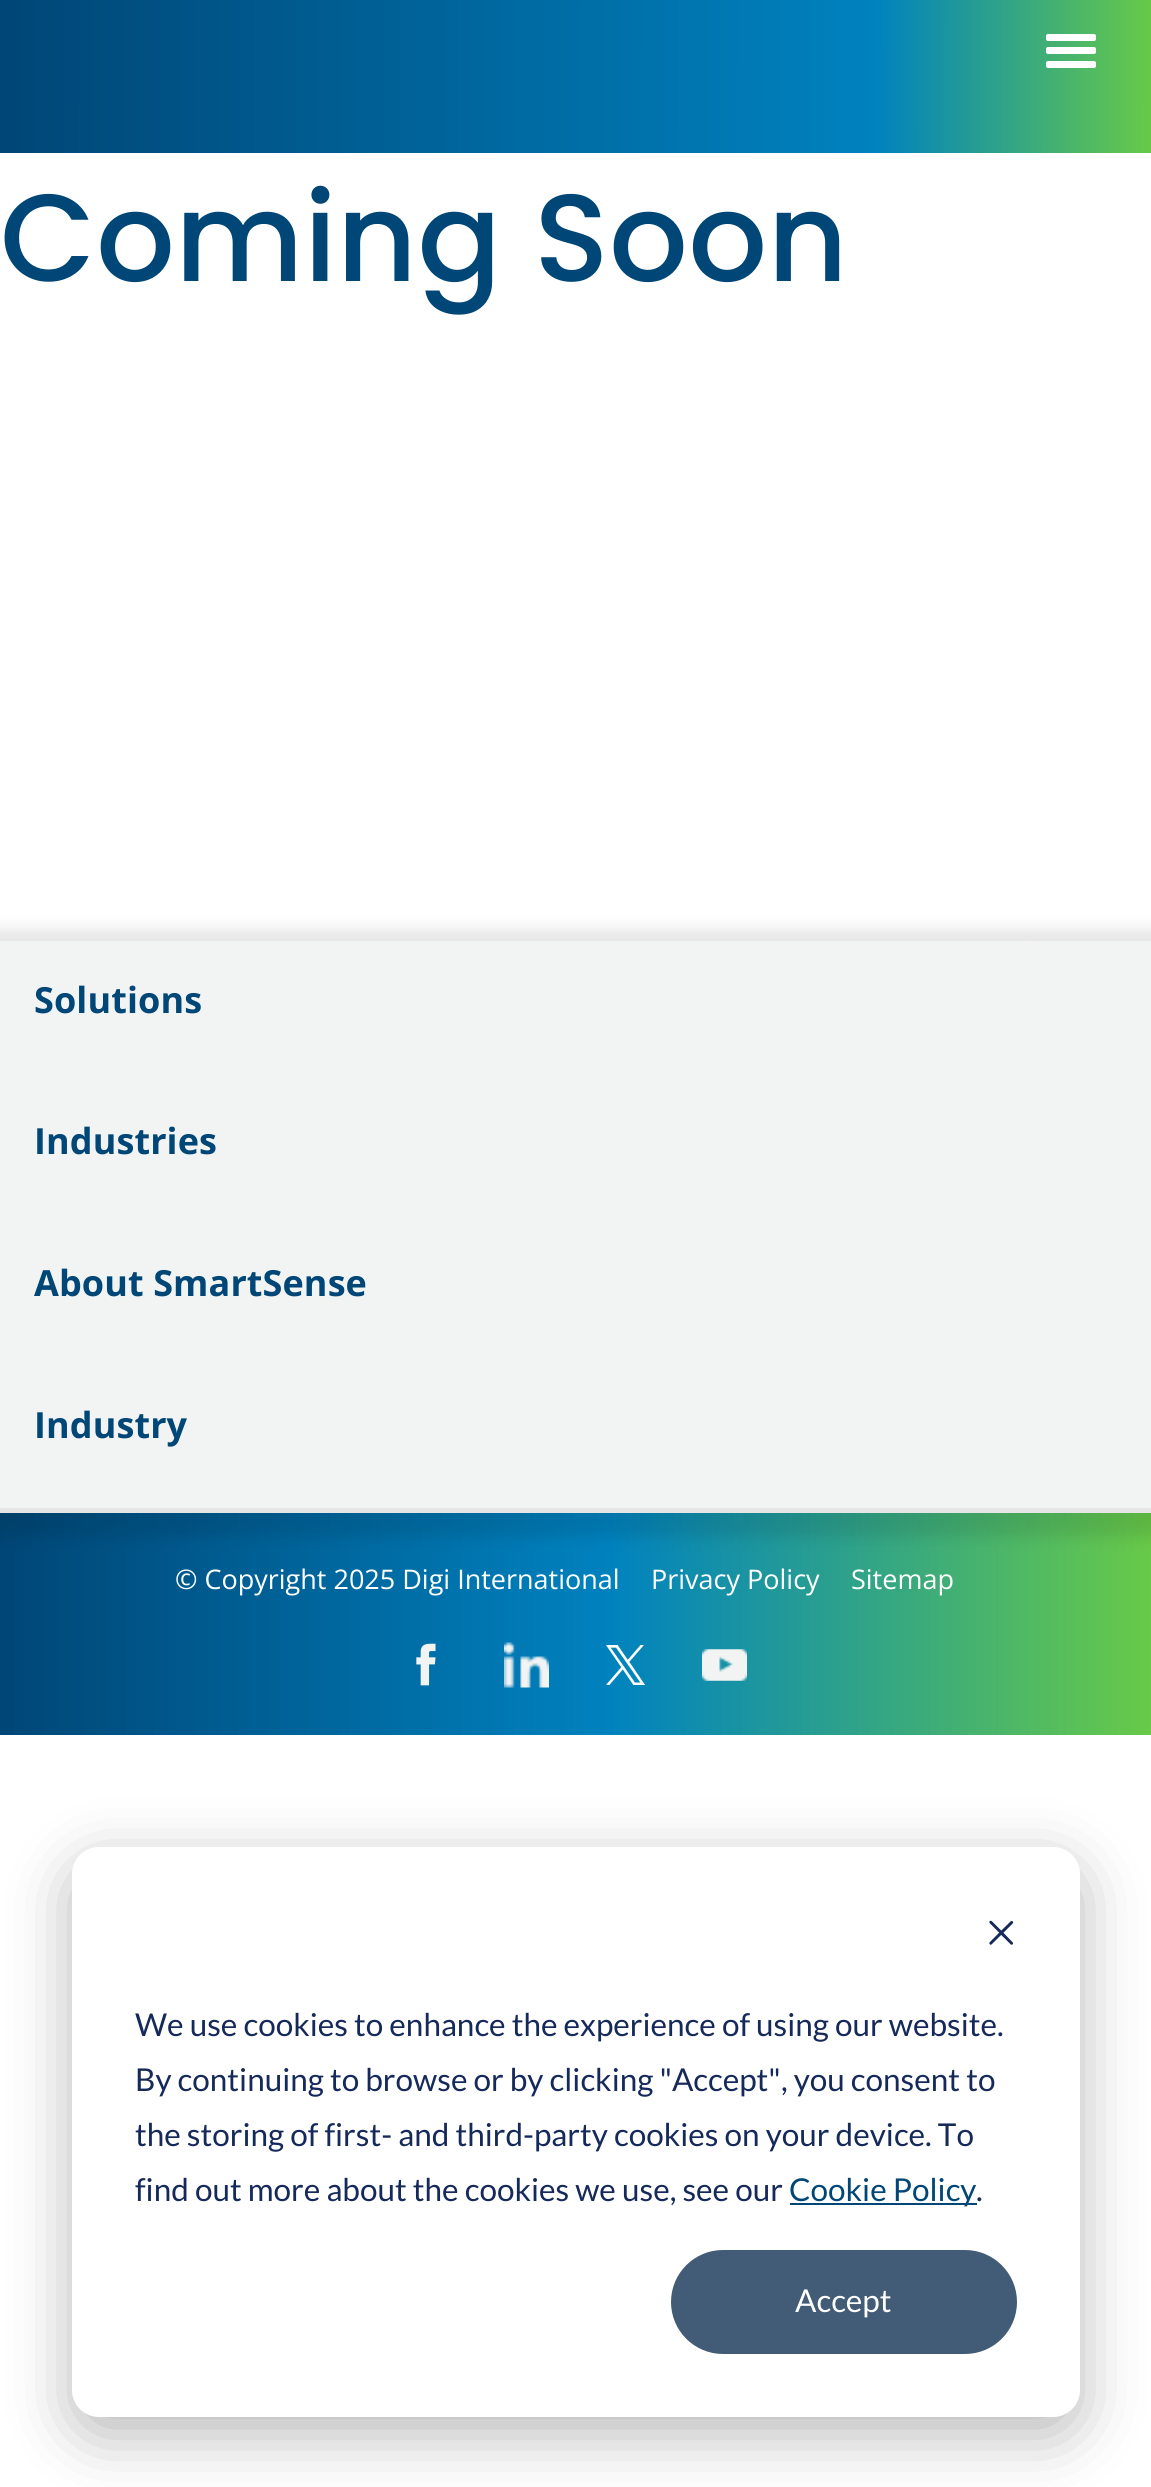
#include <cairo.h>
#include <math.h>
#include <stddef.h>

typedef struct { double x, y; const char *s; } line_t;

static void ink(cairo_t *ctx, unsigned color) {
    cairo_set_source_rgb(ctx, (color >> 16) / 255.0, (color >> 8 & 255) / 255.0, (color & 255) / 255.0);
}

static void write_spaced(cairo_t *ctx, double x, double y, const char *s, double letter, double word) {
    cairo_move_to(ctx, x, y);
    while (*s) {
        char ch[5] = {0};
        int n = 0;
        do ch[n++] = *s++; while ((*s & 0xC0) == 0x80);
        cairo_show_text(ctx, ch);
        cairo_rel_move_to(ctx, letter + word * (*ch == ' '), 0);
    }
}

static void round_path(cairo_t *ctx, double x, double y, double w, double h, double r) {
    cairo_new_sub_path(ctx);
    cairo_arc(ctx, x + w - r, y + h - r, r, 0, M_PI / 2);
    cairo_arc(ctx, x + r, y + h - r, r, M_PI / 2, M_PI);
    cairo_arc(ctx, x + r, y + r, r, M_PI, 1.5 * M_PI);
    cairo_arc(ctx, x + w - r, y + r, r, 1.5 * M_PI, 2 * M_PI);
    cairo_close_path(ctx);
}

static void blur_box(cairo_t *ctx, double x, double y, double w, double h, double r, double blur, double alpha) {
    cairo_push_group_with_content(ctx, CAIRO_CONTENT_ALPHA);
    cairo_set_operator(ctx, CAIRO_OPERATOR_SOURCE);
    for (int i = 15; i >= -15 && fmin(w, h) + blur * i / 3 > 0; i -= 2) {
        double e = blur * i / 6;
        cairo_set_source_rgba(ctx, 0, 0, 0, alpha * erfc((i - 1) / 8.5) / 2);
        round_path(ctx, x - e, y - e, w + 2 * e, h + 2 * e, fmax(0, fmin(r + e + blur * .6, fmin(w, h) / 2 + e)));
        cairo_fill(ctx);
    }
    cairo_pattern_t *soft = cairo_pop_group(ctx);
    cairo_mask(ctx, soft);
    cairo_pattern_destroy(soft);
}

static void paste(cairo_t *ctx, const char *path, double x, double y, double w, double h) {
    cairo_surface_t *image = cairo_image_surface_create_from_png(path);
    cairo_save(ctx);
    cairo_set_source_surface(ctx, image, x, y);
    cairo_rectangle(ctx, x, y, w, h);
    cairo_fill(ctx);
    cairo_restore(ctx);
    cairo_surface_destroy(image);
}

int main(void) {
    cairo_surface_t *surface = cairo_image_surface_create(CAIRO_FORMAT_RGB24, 1151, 2487);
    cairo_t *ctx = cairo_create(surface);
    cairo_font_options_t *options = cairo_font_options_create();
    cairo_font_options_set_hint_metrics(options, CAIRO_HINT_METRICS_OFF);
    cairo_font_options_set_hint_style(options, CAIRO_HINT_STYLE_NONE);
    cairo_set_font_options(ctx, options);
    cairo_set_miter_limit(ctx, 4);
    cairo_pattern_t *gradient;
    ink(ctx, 0xFFFFFF);
    cairo_paint(ctx);
    gradient = cairo_pattern_create_linear(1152, 77, 0, 76);
    cairo_pattern_add_color_stop_rgba(gradient, 0, 0.408, 0.792, 0.282, 1);
    cairo_pattern_add_color_stop_rgba(gradient, 0.24, 0, 0.51, 0.749, 1);
    cairo_pattern_add_color_stop_rgba(gradient, 1, 0, 0.275, 0.463, 1);
    cairo_set_source(ctx, gradient);
    cairo_pattern_destroy(gradient);
    cairo_rectangle(ctx, 0, 0, 1151, 153);
    cairo_fill(ctx);
    ink(ctx, 0xFFFFFF);
    round_path(ctx, 1046, 47, 50, 7, 2);
    cairo_fill(ctx);
    round_path(ctx, 1046, 34, 50, 7, 2);
    cairo_fill(ctx);
    round_path(ctx, 1046, 61, 50, 7, 2);
    cairo_fill(ctx);
    cairo_select_font_face(ctx, "Poppins Medium", CAIRO_FONT_SLANT_NORMAL, CAIRO_FONT_WEIGHT_NORMAL);
    cairo_set_font_size(ctx, 123.75);
    ink(ctx, 0x004676);
    write_spaced(ctx, 0, 281, "Coming Soon", 0.25, 0);
    gradient = cairo_pattern_create_linear(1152, 1623, 0, 1623);
    cairo_pattern_add_color_stop_rgba(gradient, 0, 0.408, 0.792, 0.282, 1);
    cairo_pattern_add_color_stop_rgba(gradient, 0.47, 0, 0.51, 0.749, 1);
    cairo_pattern_add_color_stop_rgba(gradient, 1, 0, 0.275, 0.463, 1);
    cairo_set_source(ctx, gradient);
    cairo_pattern_destroy(gradient);
    cairo_rectangle(ctx, 0, 1513, 1151, 222);
    cairo_fill(ctx);
    ink(ctx, 0x000000);
    blur_box(ctx, -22, 929, 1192, 608, 0, 8, 0.1);
    ink(ctx, 0xF2F3F3);
    cairo_rectangle(ctx, 0, 941, 1151, 567);
    cairo_fill(ctx);
    cairo_select_font_face(ctx, "Open Sans", CAIRO_FONT_SLANT_NORMAL, CAIRO_FONT_WEIGHT_BOLD);
    cairo_set_font_size(ctx, 36);
    ink(ctx, 0x004676);
    write_spaced(ctx, 34, 1013, "Solutions", 0.1, 0);
    cairo_save(ctx);
    cairo_rectangle(ctx, 0, 941, 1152, 567);
    cairo_clip(ctx);
    cairo_new_path(ctx);
    cairo_move_to(ctx, 1029.5, 940.5);
    cairo_line_to(ctx, 1029.5, 1042);
    ink(ctx, 0xF5F5F5);
    cairo_set_line_width(ctx, 2.2);
    cairo_set_dash(ctx, (double[]){2.25, 2.25}, 2, 0);
    cairo_stroke(ctx);
    cairo_restore(ctx);
    write_spaced(ctx, 34, 1154, "Industries", 0.1, 0);
    cairo_new_path(ctx);
    cairo_move_to(ctx, 1029.5, 1082);
    cairo_line_to(ctx, 1029.5, 1183.5);
    ink(ctx, 0xF5F5F5);
    cairo_set_line_width(ctx, 2.2);
    cairo_set_dash(ctx, (double[]){2.25, 2.25}, 2, 0);
    cairo_stroke(ctx);
    ink(ctx, 0x004676);
    write_spaced(ctx, 34, 1296, "About SmartSense", 0.1, 0);
    cairo_new_path(ctx);
    cairo_move_to(ctx, 1029.5, 1224);
    cairo_line_to(ctx, 1029.5, 1325);
    ink(ctx, 0xF5F5F5);
    cairo_stroke(ctx);
    ink(ctx, 0x004676);
    write_spaced(ctx, 34, 1438, "Industry", 0.1, 0);
    cairo_new_path(ctx);
    cairo_move_to(ctx, 1029.5, 1366);
    cairo_line_to(ctx, 1029.5, 1467);
    ink(ctx, 0xF5F5F5);
    cairo_stroke(ctx);
    cairo_select_font_face(ctx, "Open Sans", CAIRO_FONT_SLANT_NORMAL, CAIRO_FONT_WEIGHT_NORMAL);
    cairo_set_font_size(ctx, 27);
    ink(ctx, 0xFFFFFF);
    {
        static const line_t items[] = {
            {175, 1589, "© Copyright 2025 Digi International"},
            {651, 1589, "Privacy Policy"},
            {851, 1589, "Sitemap"},
        };
        for (size_t i = 0; i < sizeof items / sizeof *items; i++) {
            cairo_move_to(ctx, items[i].x, items[i].y);
            cairo_show_text(ctx, items[i].s);
        }
    }
    paste(ctx, "media/1.png", 416, 1643, 20, 43);
    paste(ctx, "media/2.png", 504, 1642, 45, 46);
    paste(ctx, "media/3.png", 606, 1645, 39, 40);
    paste(ctx, "media/4.png", 702, 1649, 45, 32);
    ink(ctx, 0x000000);
    blur_box(ctx, 72, 1865, 1008, 570, 27, 31.5, 0.28);
    ink(ctx, 0xFFFFFF);
    round_path(ctx, 72, 1847, 1008, 570, 27);
    cairo_fill(ctx);
    paste(ctx, "media/5.png", 989, 1920, 25, 25);
    cairo_select_font_face(ctx, "Lato", CAIRO_FONT_SLANT_NORMAL, CAIRO_FONT_WEIGHT_NORMAL);
    cairo_set_font_size(ctx, 31.5);
    ink(ctx, 0x15295A);
    {
        static const line_t items[] = {
            {135, 2036, "We use cookies to enhance the experience of using our website."},
            {135, 2091, "By continuing to browse or by clicking \"Accept\", you consent to"},
            {135, 2146, "the storing of first- and third-party cookies on your device. To"},
            {135, 2201, "find out more about the cookies we use, see our"},
        };
        for (size_t i = 0; i < sizeof items / sizeof *items; i++) {
            cairo_move_to(ctx, items[i].x, items[i].y);
            cairo_show_text(ctx, items[i].s);
        }
    }
    ink(ctx, 0x004676);
    cairo_rectangle(ctx, 790, 2203, 187, 2);
    cairo_fill(ctx);
    cairo_move_to(ctx, 789, 2201);
    cairo_show_text(ctx, "Cookie Policy");
    ink(ctx, 0x15295A);
    cairo_move_to(ctx, 976, 2201);
    cairo_show_text(ctx, ".");
    ink(ctx, 0x425B76);
    round_path(ctx, 672, 2251, 344, 102, 51);
    cairo_fill_preserve(ctx);
    cairo_set_line_width(ctx, 2);
    cairo_set_dash(ctx, NULL, 0, 0);
    cairo_stroke(ctx);
    ink(ctx, 0xFFFFFF);
    cairo_move_to(ctx, 795, 2312);
    cairo_show_text(ctx, "Accept");
    cairo_surface_write_to_png(surface, "image.png");
    cairo_font_options_destroy(options);
    cairo_destroy(ctx);
    cairo_surface_destroy(surface);
    return 0;
}
